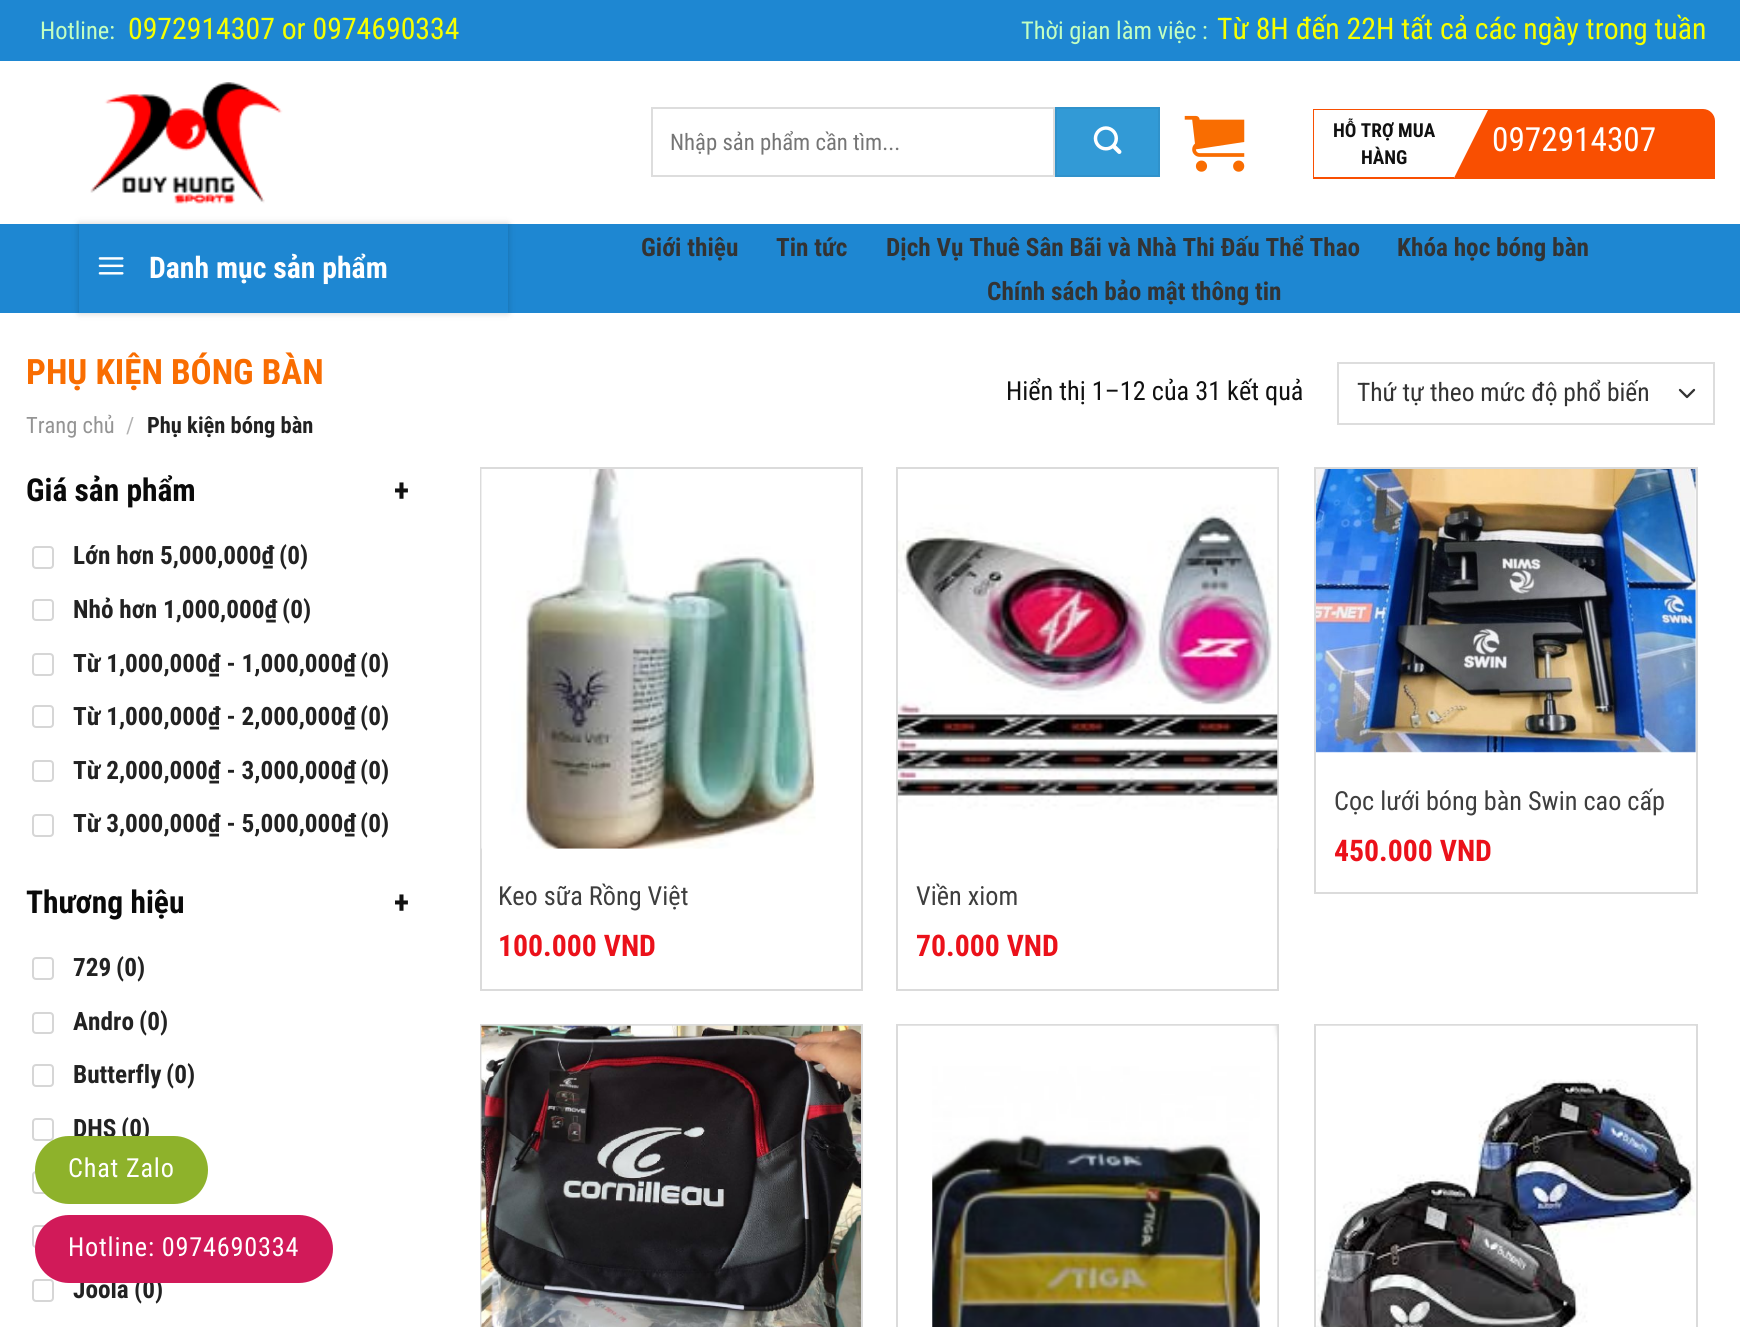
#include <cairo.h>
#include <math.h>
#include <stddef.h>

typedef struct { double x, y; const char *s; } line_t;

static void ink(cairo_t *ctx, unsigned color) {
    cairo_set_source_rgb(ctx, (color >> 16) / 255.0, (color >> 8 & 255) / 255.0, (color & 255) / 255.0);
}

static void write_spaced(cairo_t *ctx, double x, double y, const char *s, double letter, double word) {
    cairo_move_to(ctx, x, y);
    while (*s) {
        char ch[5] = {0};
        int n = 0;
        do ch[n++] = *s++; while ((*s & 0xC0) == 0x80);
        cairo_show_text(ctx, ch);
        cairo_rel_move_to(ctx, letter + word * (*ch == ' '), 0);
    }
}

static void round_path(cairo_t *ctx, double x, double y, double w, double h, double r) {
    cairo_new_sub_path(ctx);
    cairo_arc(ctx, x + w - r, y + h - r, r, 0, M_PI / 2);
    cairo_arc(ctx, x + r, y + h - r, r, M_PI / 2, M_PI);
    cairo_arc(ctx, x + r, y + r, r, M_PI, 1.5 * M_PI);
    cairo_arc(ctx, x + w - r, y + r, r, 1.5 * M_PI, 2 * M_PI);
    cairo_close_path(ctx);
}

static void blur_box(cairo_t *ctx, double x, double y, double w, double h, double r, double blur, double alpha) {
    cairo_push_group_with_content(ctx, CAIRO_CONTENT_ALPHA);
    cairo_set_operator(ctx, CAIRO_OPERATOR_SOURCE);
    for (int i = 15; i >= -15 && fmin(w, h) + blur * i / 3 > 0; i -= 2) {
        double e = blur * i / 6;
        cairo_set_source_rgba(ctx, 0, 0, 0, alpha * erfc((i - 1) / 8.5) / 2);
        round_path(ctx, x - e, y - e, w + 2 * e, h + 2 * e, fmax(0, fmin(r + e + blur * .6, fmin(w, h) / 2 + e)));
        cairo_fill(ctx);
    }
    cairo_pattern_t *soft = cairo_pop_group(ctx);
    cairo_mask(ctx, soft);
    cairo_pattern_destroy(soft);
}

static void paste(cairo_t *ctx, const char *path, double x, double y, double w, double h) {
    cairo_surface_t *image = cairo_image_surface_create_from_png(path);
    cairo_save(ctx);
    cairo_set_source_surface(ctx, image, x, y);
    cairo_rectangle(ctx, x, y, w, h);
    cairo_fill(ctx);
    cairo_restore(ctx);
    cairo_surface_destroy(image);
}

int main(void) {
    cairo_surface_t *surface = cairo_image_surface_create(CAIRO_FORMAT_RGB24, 1740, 1327);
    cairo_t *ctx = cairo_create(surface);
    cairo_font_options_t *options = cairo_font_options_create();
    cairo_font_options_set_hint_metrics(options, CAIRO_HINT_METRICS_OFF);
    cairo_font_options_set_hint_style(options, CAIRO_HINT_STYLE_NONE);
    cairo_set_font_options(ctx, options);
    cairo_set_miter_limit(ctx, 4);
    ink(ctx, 0xFFFFFF);
    cairo_paint(ctx);
    ink(ctx, 0x1E87D2);
    cairo_rectangle(ctx, 0, 0, 1740, 61);
    cairo_fill(ctx);
    cairo_select_font_face(ctx, "Roboto Condensed", CAIRO_FONT_SLANT_NORMAL, CAIRO_FONT_WEIGHT_NORMAL);
    cairo_set_font_size(ctx, 24.5);
    ink(ctx, 0xC3FFC1);
    cairo_move_to(ctx, 40, 39);
    cairo_show_text(ctx, "Hotline:");
    cairo_set_font_size(ctx, 29.75);
    ink(ctx, 0xF6FF00);
    cairo_move_to(ctx, 128, 39);
    cairo_show_text(ctx, "0972914307 or 0974690334");
    cairo_set_font_size(ctx, 24.5);
    ink(ctx, 0xC3FFC1);
    cairo_move_to(ctx, 1021, 39);
    cairo_show_text(ctx, "Thời gian làm việc :");
    cairo_set_font_size(ctx, 29.75);
    ink(ctx, 0xF6FF00);
    cairo_move_to(ctx, 1217, 39);
    cairo_show_text(ctx, "Từ 8H đến 22H tất cả các ngày trong tuần");
    paste(ctx, "media/1.png", 90, 82, 193, 122);
    cairo_rectangle(ctx, 652, 108, 402, 68);
    ink(ctx, 0xDDDDDD);
    cairo_stroke(ctx);
    cairo_set_font_size(ctx, 22.75);
    ink(ctx, 0x757575);
    cairo_move_to(ctx, 670, 150);
    cairo_show_text(ctx, "Nhập sản phẩm cần tìm...");
    ink(ctx, 0x329AD6);
    cairo_rectangle(ctx, 1056, 108, 103, 68);
    cairo_fill_preserve(ctx);
    ink(ctx, 0x3092CB);
    cairo_stroke(ctx);
    paste(ctx, "media/2.png", 1093, 126, 29, 28);
    paste(ctx, "media/3.png", 1184, 115, 61, 57);
    ink(ctx, 0xF94F01);
    cairo_new_path(ctx);
    cairo_move_to(ctx, 1314, 110);
    cairo_line_to(ctx, 1703, 110);
    cairo_curve_to(ctx, 1709, 110, 1714, 115, 1714, 121);
    cairo_line_to(ctx, 1714, 178);
    cairo_line_to(ctx, 1314, 178);
    cairo_close_path(ctx);
    cairo_fill_preserve(ctx);
    cairo_stroke(ctx);
    ink(ctx, 0xFFFFFF);
    cairo_rectangle(ctx, 1314, 110, 140, 67);
    cairo_fill(ctx);
    cairo_select_font_face(ctx, "Roboto Condensed", CAIRO_FONT_SLANT_NORMAL, CAIRO_FONT_WEIGHT_BOLD);
    cairo_set_font_size(ctx, 19.25);
    ink(ctx, 0x111111);
    cairo_move_to(ctx, 1333, 137);
    cairo_show_text(ctx, "HỖ TRỢ MUA");
    cairo_move_to(ctx, 1361, 164);
    cairo_show_text(ctx, "HÀNG");
    ink(ctx, 0xFFFFFF);
    cairo_new_path(ctx);
    cairo_move_to(ctx, 1454, 178);
    cairo_line_to(ctx, 1454, 110);
    cairo_line_to(ctx, 1488, 110);
    cairo_close_path(ctx);
    cairo_fill(ctx);
    cairo_select_font_face(ctx, "Roboto Condensed", CAIRO_FONT_SLANT_NORMAL, CAIRO_FONT_WEIGHT_NORMAL);
    cairo_set_font_size(ctx, 33.25);
    cairo_move_to(ctx, 1492, 151);
    cairo_show_text(ctx, "0972914307");
    ink(ctx, 0x1E87D2);
    cairo_rectangle(ctx, 0, 224, 1740, 89);
    cairo_fill(ctx);
    cairo_save(ctx);
    cairo_set_fill_rule(ctx, CAIRO_FILL_RULE_EVEN_ODD);
    cairo_new_path(ctx);
    cairo_move_to(ctx, 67, 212);
    cairo_line_to(ctx, 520, 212);
    cairo_line_to(ctx, 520, 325);
    cairo_line_to(ctx, 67, 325);
    cairo_close_path(ctx);
    cairo_move_to(ctx, 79, 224);
    cairo_line_to(ctx, 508, 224);
    cairo_line_to(ctx, 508, 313);
    cairo_line_to(ctx, 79, 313);
    cairo_close_path(ctx);
    cairo_clip(ctx);
    ink(ctx, 0x000000);
    blur_box(ctx, 79, 224, 429, 89, 0, 3.5, 0.2);
    cairo_restore(ctx);
    paste(ctx, "media/4.png", 98, 257, 26, 18);
    cairo_select_font_face(ctx, "Roboto Condensed", CAIRO_FONT_SLANT_NORMAL, CAIRO_FONT_WEIGHT_BOLD);
    cairo_set_font_size(ctx, 29.75);
    ink(ctx, 0xFFFFFF);
    cairo_move_to(ctx, 149, 278);
    cairo_show_text(ctx, "Danh mục sản phẩm");
    cairo_set_font_size(ctx, 25.25);
    ink(ctx, 0x333333);
    {
        static const line_t items[] = {
            {641, 256, "Giới thiệu"},
            {776, 256, "Tin tức"},
            {886, 256, "Dịch Vụ Thuê Sân Bãi và Nhà Thi Đấu Thể Thao"},
            {1397, 256, "Khóa học bóng bàn"},
            {987, 300, "Chính sách bảo mật thông tin"},
        };
        for (size_t i = 0; i < sizeof items / sizeof *items; i++) {
            cairo_move_to(ctx, items[i].x, items[i].y);
            cairo_show_text(ctx, items[i].s);
        }
    }
    cairo_set_font_size(ctx, 35);
    ink(ctx, 0xF96D01);
    cairo_move_to(ctx, 26, 384);
    cairo_show_text(ctx, "PHỤ KIỆN BÓNG BÀN");
    cairo_select_font_face(ctx, "Roboto Condensed", CAIRO_FONT_SLANT_NORMAL, CAIRO_FONT_WEIGHT_NORMAL);
    cairo_set_font_size(ctx, 22.5);
    ink(ctx, 0x949494);
    cairo_move_to(ctx, 26, 433);
    cairo_show_text(ctx, "Trang chủ");
    ink(ctx, 0xB2B2B2);
    cairo_move_to(ctx, 126, 433);
    cairo_show_text(ctx, "/");
    cairo_select_font_face(ctx, "Roboto Condensed", CAIRO_FONT_SLANT_NORMAL, CAIRO_FONT_WEIGHT_BOLD);
    ink(ctx, 0x222222);
    cairo_move_to(ctx, 147, 433);
    cairo_show_text(ctx, "Phụ kiện bóng bàn");
    cairo_select_font_face(ctx, "Roboto Condensed", CAIRO_FONT_SLANT_NORMAL, CAIRO_FONT_WEIGHT_NORMAL);
    cairo_set_font_size(ctx, 26.25);
    ink(ctx, 0x111111);
    cairo_move_to(ctx, 1006, 400);
    cairo_show_text(ctx, "Hiển thị 1–12 của 31 kết quả");
    cairo_new_path(ctx);
    cairo_move_to(ctx, 1680, 390);
    cairo_line_to(ctx, 1687, 397);
    cairo_line_to(ctx, 1694, 390);
    ink(ctx, 0x333333);
    cairo_set_line_width(ctx, 2.3);
    cairo_set_line_cap(ctx, CAIRO_LINE_CAP_ROUND);
    cairo_set_line_join(ctx, CAIRO_LINE_JOIN_ROUND);
    cairo_stroke(ctx);
    cairo_rectangle(ctx, 1338, 363, 376, 61);
    ink(ctx, 0xDDDDDD);
    cairo_set_line_width(ctx, 2);
    cairo_set_line_cap(ctx, CAIRO_LINE_CAP_BUTT);
    cairo_set_line_join(ctx, CAIRO_LINE_JOIN_MITER);
    cairo_stroke(ctx);
    cairo_set_font_size(ctx, 25.5);
    ink(ctx, 0x333333);
    cairo_move_to(ctx, 1357, 401);
    cairo_show_text(ctx, "Thứ tự theo mức độ phổ biến");
    cairo_select_font_face(ctx, "Roboto Condensed", CAIRO_FONT_SLANT_NORMAL, CAIRO_FONT_WEIGHT_BOLD);
    cairo_set_font_size(ctx, 31.5);
    ink(ctx, 0x0A0A0A);
    cairo_move_to(ctx, 26, 501);
    cairo_show_text(ctx, "Giá sản phẩm");
    ink(ctx, 0x111111);
    cairo_move_to(ctx, 394, 501);
    cairo_show_text(ctx, "+");
    round_path(ctx, 33, 547, 20, 21, 3);
    ink(ctx, 0xD6D6D6);
    cairo_stroke(ctx);
    cairo_set_font_size(ctx, 25.25);
    ink(ctx, 0x222222);
    cairo_move_to(ctx, 73, 564);
    cairo_show_text(ctx, "Lớn hơn 5,000,000₫");
    cairo_move_to(ctx, 279, 564);
    cairo_show_text(ctx, "(0)");
    round_path(ctx, 33, 600, 20, 20, 3);
    ink(ctx, 0xD6D6D6);
    cairo_stroke(ctx);
    ink(ctx, 0x222222);
    cairo_move_to(ctx, 73, 618);
    cairo_show_text(ctx, "Nhỏ hơn 1,000,000₫");
    cairo_move_to(ctx, 282, 618);
    cairo_show_text(ctx, "(0)");
    round_path(ctx, 33, 654, 20, 21, 3);
    ink(ctx, 0xD6D6D6);
    cairo_stroke(ctx);
    ink(ctx, 0x222222);
    cairo_move_to(ctx, 73, 672);
    cairo_show_text(ctx, "Từ 1,000,000₫ - 1,000,000₫");
    cairo_move_to(ctx, 360, 672);
    cairo_show_text(ctx, "(0)");
    round_path(ctx, 33, 706, 20, 21, 3);
    ink(ctx, 0xD6D6D6);
    cairo_stroke(ctx);
    ink(ctx, 0x222222);
    cairo_move_to(ctx, 73, 725);
    cairo_show_text(ctx, "Từ 1,000,000₫ - 2,000,000₫");
    cairo_move_to(ctx, 360, 725);
    cairo_show_text(ctx, "(0)");
    round_path(ctx, 33, 761, 20, 20, 3);
    ink(ctx, 0xD6D6D6);
    cairo_stroke(ctx);
    ink(ctx, 0x222222);
    cairo_move_to(ctx, 73, 779);
    cairo_show_text(ctx, "Từ 2,000,000₫ - 3,000,000₫");
    cairo_move_to(ctx, 360, 779);
    cairo_show_text(ctx, "(0)");
    round_path(ctx, 33, 815, 20, 21, 3);
    ink(ctx, 0xD6D6D6);
    cairo_stroke(ctx);
    ink(ctx, 0x222222);
    cairo_move_to(ctx, 73, 832);
    cairo_show_text(ctx, "Từ 3,000,000₫ - 5,000,000₫");
    cairo_move_to(ctx, 360, 832);
    cairo_show_text(ctx, "(0)");
    cairo_set_font_size(ctx, 31.5);
    ink(ctx, 0x0A0A0A);
    cairo_move_to(ctx, 26, 913);
    cairo_show_text(ctx, "Thương hiệu");
    ink(ctx, 0x111111);
    cairo_move_to(ctx, 394, 913);
    cairo_show_text(ctx, "+");
    round_path(ctx, 33, 958, 20, 21, 3);
    ink(ctx, 0xD6D6D6);
    cairo_stroke(ctx);
    cairo_set_font_size(ctx, 25.25);
    ink(ctx, 0x222222);
    cairo_move_to(ctx, 73, 976);
    cairo_show_text(ctx, "729");
    cairo_move_to(ctx, 116, 976);
    cairo_show_text(ctx, "(0)");
    round_path(ctx, 33, 1013, 20, 20, 3);
    ink(ctx, 0xD6D6D6);
    cairo_stroke(ctx);
    ink(ctx, 0x222222);
    cairo_move_to(ctx, 73, 1030);
    cairo_show_text(ctx, "Andro");
    cairo_move_to(ctx, 139, 1030);
    cairo_show_text(ctx, "(0)");
    round_path(ctx, 33, 1065, 20, 21, 3);
    ink(ctx, 0xD6D6D6);
    cairo_stroke(ctx);
    ink(ctx, 0x222222);
    cairo_move_to(ctx, 73, 1083);
    cairo_show_text(ctx, "Butterfly");
    cairo_move_to(ctx, 166, 1083);
    cairo_show_text(ctx, "(0)");
    round_path(ctx, 33, 1119, 20, 21, 3);
    ink(ctx, 0xD6D6D6);
    cairo_stroke(ctx);
    ink(ctx, 0x222222);
    cairo_move_to(ctx, 73, 1137);
    cairo_show_text(ctx, "DHS");
    cairo_move_to(ctx, 121, 1137);
    cairo_show_text(ctx, "(0)");
    round_path(ctx, 33, 1172, 20, 21, 3);
    ink(ctx, 0xD6D6D6);
    cairo_stroke(ctx);
    round_path(ctx, 33, 1226, 20, 21, 3);
    cairo_stroke(ctx);
    round_path(ctx, 33, 1280, 20, 21, 3);
    cairo_stroke(ctx);
    ink(ctx, 0x222222);
    cairo_move_to(ctx, 73, 1298);
    cairo_show_text(ctx, "Joola");
    cairo_move_to(ctx, 134, 1298);
    cairo_show_text(ctx, "(0)");
    cairo_rectangle(ctx, 1315, 468, 382, 425);
    ink(ctx, 0xDBDBDB);
    cairo_stroke(ctx);
    paste(ctx, "media/5.png", 1316, 469, 380, 284);
    cairo_select_font_face(ctx, "Roboto Condensed", CAIRO_FONT_SLANT_NORMAL, CAIRO_FONT_WEIGHT_NORMAL);
    cairo_set_font_size(ctx, 26.25);
    ink(ctx, 0x3E3E3E);
    cairo_move_to(ctx, 1334, 810);
    cairo_show_text(ctx, "Cọc lưới bóng bàn Swin cao cấp");
    cairo_select_font_face(ctx, "Roboto Condensed", CAIRO_FONT_SLANT_NORMAL, CAIRO_FONT_WEIGHT_BOLD);
    cairo_set_font_size(ctx, 29.75);
    ink(ctx, 0xEB111A);
    cairo_move_to(ctx, 1334, 861);
    cairo_show_text(ctx, "450.000 VND");
    cairo_rectangle(ctx, 481, 468, 381, 522);
    ink(ctx, 0xDBDBDB);
    cairo_stroke(ctx);
    paste(ctx, "media/6.png", 481, 469, 335, 380);
    cairo_select_font_face(ctx, "Roboto Condensed", CAIRO_FONT_SLANT_NORMAL, CAIRO_FONT_WEIGHT_NORMAL);
    cairo_set_font_size(ctx, 26.25);
    ink(ctx, 0x3E3E3E);
    cairo_move_to(ctx, 498, 905);
    cairo_show_text(ctx, "Keo sữa Rồng Việt");
    cairo_select_font_face(ctx, "Roboto Condensed", CAIRO_FONT_SLANT_NORMAL, CAIRO_FONT_WEIGHT_BOLD);
    cairo_set_font_size(ctx, 29.75);
    ink(ctx, 0xEB111A);
    cairo_move_to(ctx, 498, 956);
    cairo_show_text(ctx, "100.000 VND");
    cairo_rectangle(ctx, 897, 468, 381, 522);
    ink(ctx, 0xDBDBDB);
    cairo_stroke(ctx);
    paste(ctx, "media/7.png", 897, 469, 381, 380);
    cairo_select_font_face(ctx, "Roboto Condensed", CAIRO_FONT_SLANT_NORMAL, CAIRO_FONT_WEIGHT_NORMAL);
    cairo_set_font_size(ctx, 26.25);
    ink(ctx, 0x3E3E3E);
    cairo_move_to(ctx, 916, 905);
    cairo_show_text(ctx, "Viền xiom");
    cairo_select_font_face(ctx, "Roboto Condensed", CAIRO_FONT_SLANT_NORMAL, CAIRO_FONT_WEIGHT_BOLD);
    cairo_set_font_size(ctx, 29.75);
    ink(ctx, 0xEB111A);
    cairo_move_to(ctx, 916, 956);
    cairo_show_text(ctx, "70.000 VND");
    cairo_rectangle(ctx, 481, 1025, 381, 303);
    ink(ctx, 0xDBDBDB);
    cairo_stroke(ctx);
    paste(ctx, "media/8.png", 481, 1025, 380, 302);
    cairo_rectangle(ctx, 897, 1025, 381, 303);
    cairo_stroke(ctx);
    paste(ctx, "media/9.png", 898, 1025, 380, 302);
    cairo_rectangle(ctx, 1315, 1025, 382, 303);
    cairo_stroke(ctx);
    paste(ctx, "media/10.png", 1316, 1025, 380, 302);
    ink(ctx, 0x8EB22B);
    round_path(ctx, 35, 1136, 173, 68, 34);
    cairo_fill(ctx);
    cairo_select_font_face(ctx, "Roboto Condensed", CAIRO_FONT_SLANT_NORMAL, CAIRO_FONT_WEIGHT_NORMAL);
    cairo_set_font_size(ctx, 26.25);
    ink(ctx, 0xFFFFFF);
    write_spaced(ctx, 68, 1177, "Chat Zalo", 0.8, 0);
    ink(ctx, 0xD11A59);
    round_path(ctx, 35, 1215, 298, 68, 34);
    cairo_fill(ctx);
    ink(ctx, 0xFFFFFF);
    write_spaced(ctx, 68, 1256, "Hotline: 0974690334", 0.8, 0);
    cairo_surface_write_to_png(surface, "image.png");
    cairo_font_options_destroy(options);
    cairo_destroy(ctx);
    cairo_surface_destroy(surface);
    return 0;
}
